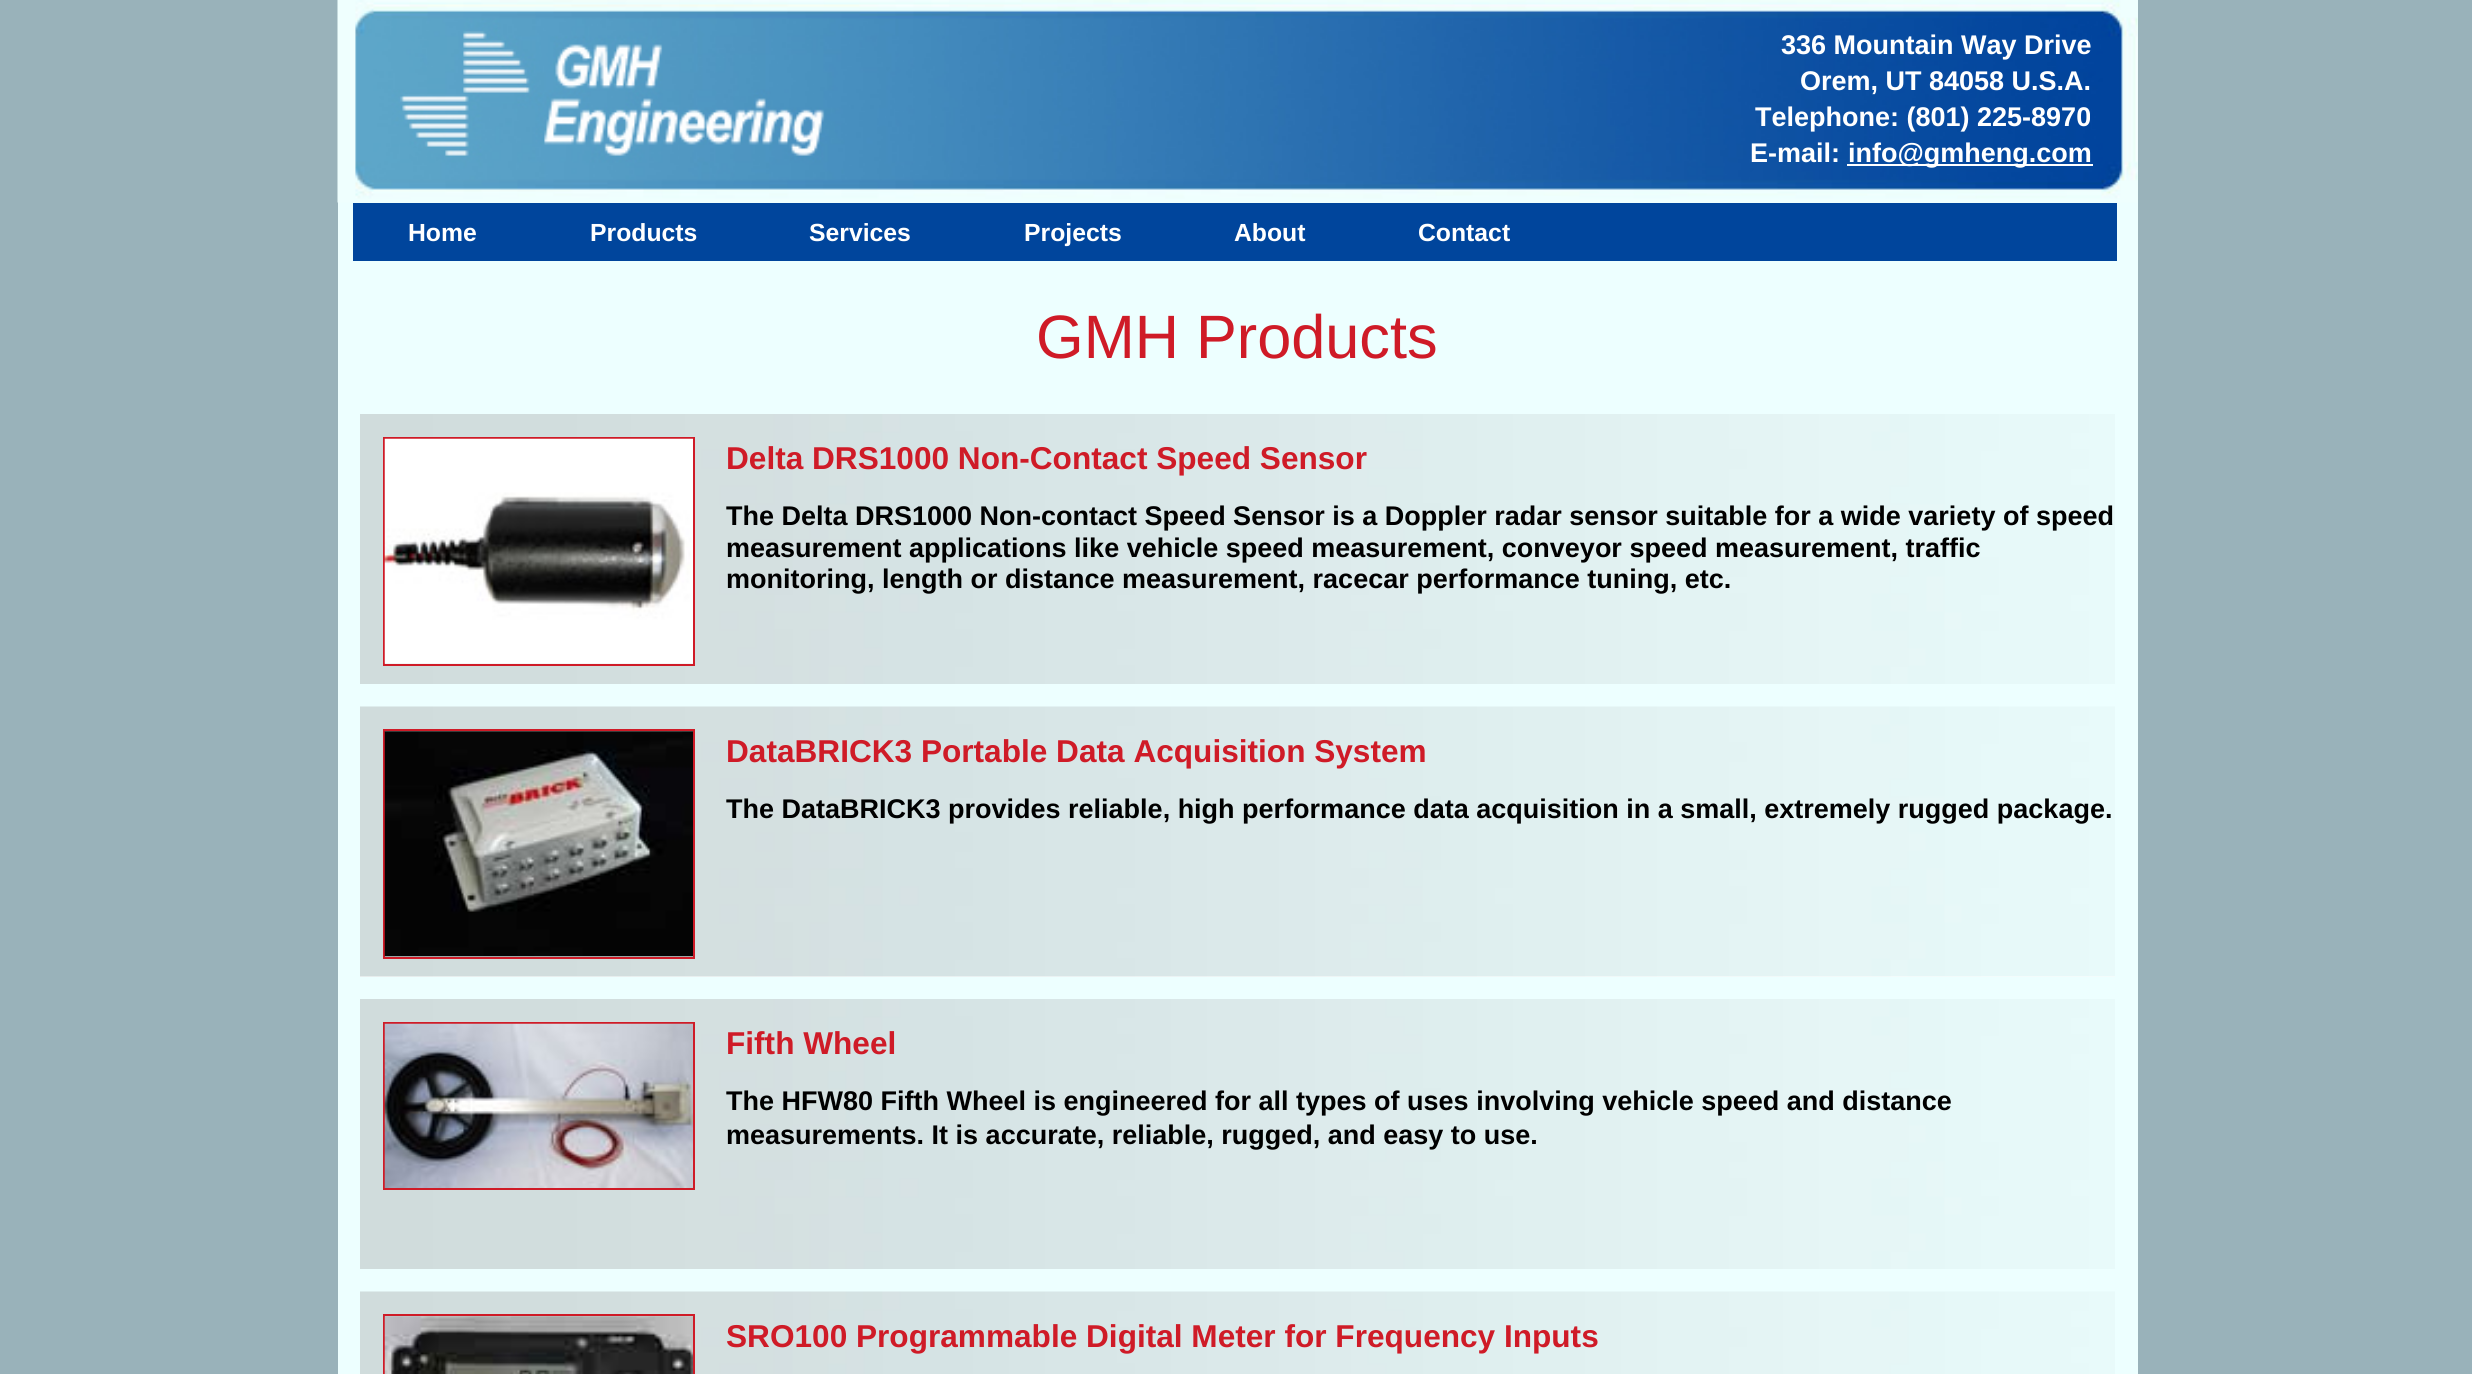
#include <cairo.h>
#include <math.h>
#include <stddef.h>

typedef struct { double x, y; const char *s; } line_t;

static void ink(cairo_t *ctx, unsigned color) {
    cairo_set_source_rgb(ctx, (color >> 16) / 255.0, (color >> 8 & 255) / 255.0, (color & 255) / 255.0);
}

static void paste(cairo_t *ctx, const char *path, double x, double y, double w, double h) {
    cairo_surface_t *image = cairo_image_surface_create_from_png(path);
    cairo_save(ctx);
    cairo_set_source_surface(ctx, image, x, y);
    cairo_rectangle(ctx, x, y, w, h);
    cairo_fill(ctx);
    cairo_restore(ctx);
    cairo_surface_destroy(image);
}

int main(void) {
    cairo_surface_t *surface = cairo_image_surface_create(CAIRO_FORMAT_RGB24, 2472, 1374);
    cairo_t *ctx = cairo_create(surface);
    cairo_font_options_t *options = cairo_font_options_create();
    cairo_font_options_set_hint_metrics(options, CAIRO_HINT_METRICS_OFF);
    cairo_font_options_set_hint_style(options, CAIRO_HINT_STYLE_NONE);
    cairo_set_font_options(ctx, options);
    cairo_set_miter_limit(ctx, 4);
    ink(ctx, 0x99B2BA);
    cairo_paint(ctx);
    ink(ctx, 0xEDFFFF);
    cairo_rectangle(ctx, 338, 0, 1800, 1374);
    cairo_fill(ctx);
    paste(ctx, "media/1.png", 337, 0, 1801, 203);
    cairo_select_font_face(ctx, "Liberation Sans", CAIRO_FONT_SLANT_NORMAL, CAIRO_FONT_WEIGHT_BOLD);
    cairo_set_font_size(ctx, 27);
    ink(ctx, 0xFFFFFF);
    {
        static const line_t items[] = {
            {1781, 54, "336 Mountain Way Drive"},
            {1800, 90, "Orem, UT 84058 U.S.A."},
            {1755, 126, "Telephone: (801) 225-8970"},
            {1750, 162, "E-mail:"},
        };
        for (size_t i = 0; i < sizeof items / sizeof *items; i++) {
            cairo_move_to(ctx, items[i].x, items[i].y);
            cairo_show_text(ctx, items[i].s);
        }
    }
    cairo_rectangle(ctx, 1847, 164, 246, 2);
    cairo_fill(ctx);
    cairo_move_to(ctx, 1848, 162);
    cairo_show_text(ctx, "info@gmheng.com");
    ink(ctx, 0x00459C);
    cairo_rectangle(ctx, 353, 203, 1764, 58);
    cairo_fill(ctx);
    cairo_set_font_size(ctx, 24.75);
    ink(ctx, 0xFFFFFF);
    {
        static const line_t items[] = {
            {408, 241, "Home"},
            {590, 241, "Products"},
            {809, 241, "Services"},
            {1024, 241, "Projects"},
            {1234, 241, "About"},
            {1418, 241, "Contact"},
        };
        for (size_t i = 0; i < sizeof items / sizeof *items; i++) {
            cairo_move_to(ctx, items[i].x, items[i].y);
            cairo_show_text(ctx, items[i].s);
        }
    }
    cairo_select_font_face(ctx, "Liberation Sans", CAIRO_FONT_SLANT_NORMAL, CAIRO_FONT_WEIGHT_NORMAL);
    cairo_set_font_size(ctx, 61.25);
    ink(ctx, 0xCF1B27);
    cairo_move_to(ctx, 1036, 358);
    cairo_show_text(ctx, "GMH Products");
    paste(ctx, "media/2.png", 360, 414, 1755, 270);
    cairo_rectangle(ctx, 384, 438, 310, 227);
    cairo_stroke(ctx);
    paste(ctx, "media/3.png", 384, 438, 309, 226);
    cairo_select_font_face(ctx, "Liberation Sans", CAIRO_FONT_SLANT_NORMAL, CAIRO_FONT_WEIGHT_BOLD);
    cairo_set_font_size(ctx, 31.6);
    cairo_move_to(ctx, 726, 469);
    cairo_show_text(ctx, "Delta DRS1000 Non-Contact Speed Sensor");
    cairo_set_font_size(ctx, 27);
    ink(ctx, 0x000000);
    {
        static const line_t items[] = {
            {726, 525, "The Delta DRS1000 Non-contact Speed Sensor is a Doppler radar sensor suitable for a wide variety of speed"},
            {726, 557, "measurement applications like vehicle speed measurement, conveyor speed measurement, traffic"},
            {726, 588, "monitoring, length or distance measurement, racecar performance tuning, etc."},
        };
        for (size_t i = 0; i < sizeof items / sizeof *items; i++) {
            cairo_move_to(ctx, items[i].x, items[i].y);
            cairo_show_text(ctx, items[i].s);
        }
    }
    ink(ctx, 0xFFFFFF);
    cairo_rectangle(ctx, 360, 976, 1755, 1);
    cairo_fill(ctx);
    paste(ctx, "media/4.png", 360, 706, 1755, 271);
    cairo_rectangle(ctx, 384, 730, 310, 228);
    ink(ctx, 0xCF1B27);
    cairo_stroke(ctx);
    paste(ctx, "media/5.png", 384, 731, 309, 226);
    cairo_set_font_size(ctx, 31.6);
    cairo_move_to(ctx, 726, 762);
    cairo_show_text(ctx, "DataBRICK3 Portable Data Acquisition System");
    cairo_set_font_size(ctx, 27);
    ink(ctx, 0x000000);
    cairo_move_to(ctx, 726, 818);
    cairo_show_text(ctx, "The DataBRICK3 provides reliable, high performance data acquisition in a small, extremely rugged package.");
    paste(ctx, "media/2.png", 360, 999, 1755, 270);
    cairo_rectangle(ctx, 384, 1023, 310, 166);
    ink(ctx, 0xCF1B27);
    cairo_stroke(ctx);
    paste(ctx, "media/6.png", 384, 1023, 309, 165);
    cairo_set_font_size(ctx, 31.6);
    cairo_move_to(ctx, 726, 1054);
    cairo_show_text(ctx, "Fifth Wheel");
    cairo_set_font_size(ctx, 27);
    ink(ctx, 0x000000);
    cairo_move_to(ctx, 726, 1110);
    cairo_show_text(ctx, "The HFW80 Fifth Wheel is engineered for all types of uses involving vehicle speed and distance");
    cairo_move_to(ctx, 726, 1144);
    cairo_show_text(ctx, "measurements. It is accurate, reliable, rugged, and easy to use.");
    paste(ctx, "media/7.png", 360, 1291, 1755, 83);
    cairo_rectangle(ctx, 384, 1315, 310, 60);
    ink(ctx, 0xCF1B27);
    cairo_stroke(ctx);
    paste(ctx, "media/8.png", 384, 1316, 309, 58);
    cairo_set_font_size(ctx, 31.6);
    cairo_move_to(ctx, 726, 1347);
    cairo_show_text(ctx, "SRO100 Programmable Digital Meter for Frequency Inputs");
    cairo_surface_write_to_png(surface, "image.png");
    cairo_font_options_destroy(options);
    cairo_destroy(ctx);
    cairo_surface_destroy(surface);
    return 0;
}
